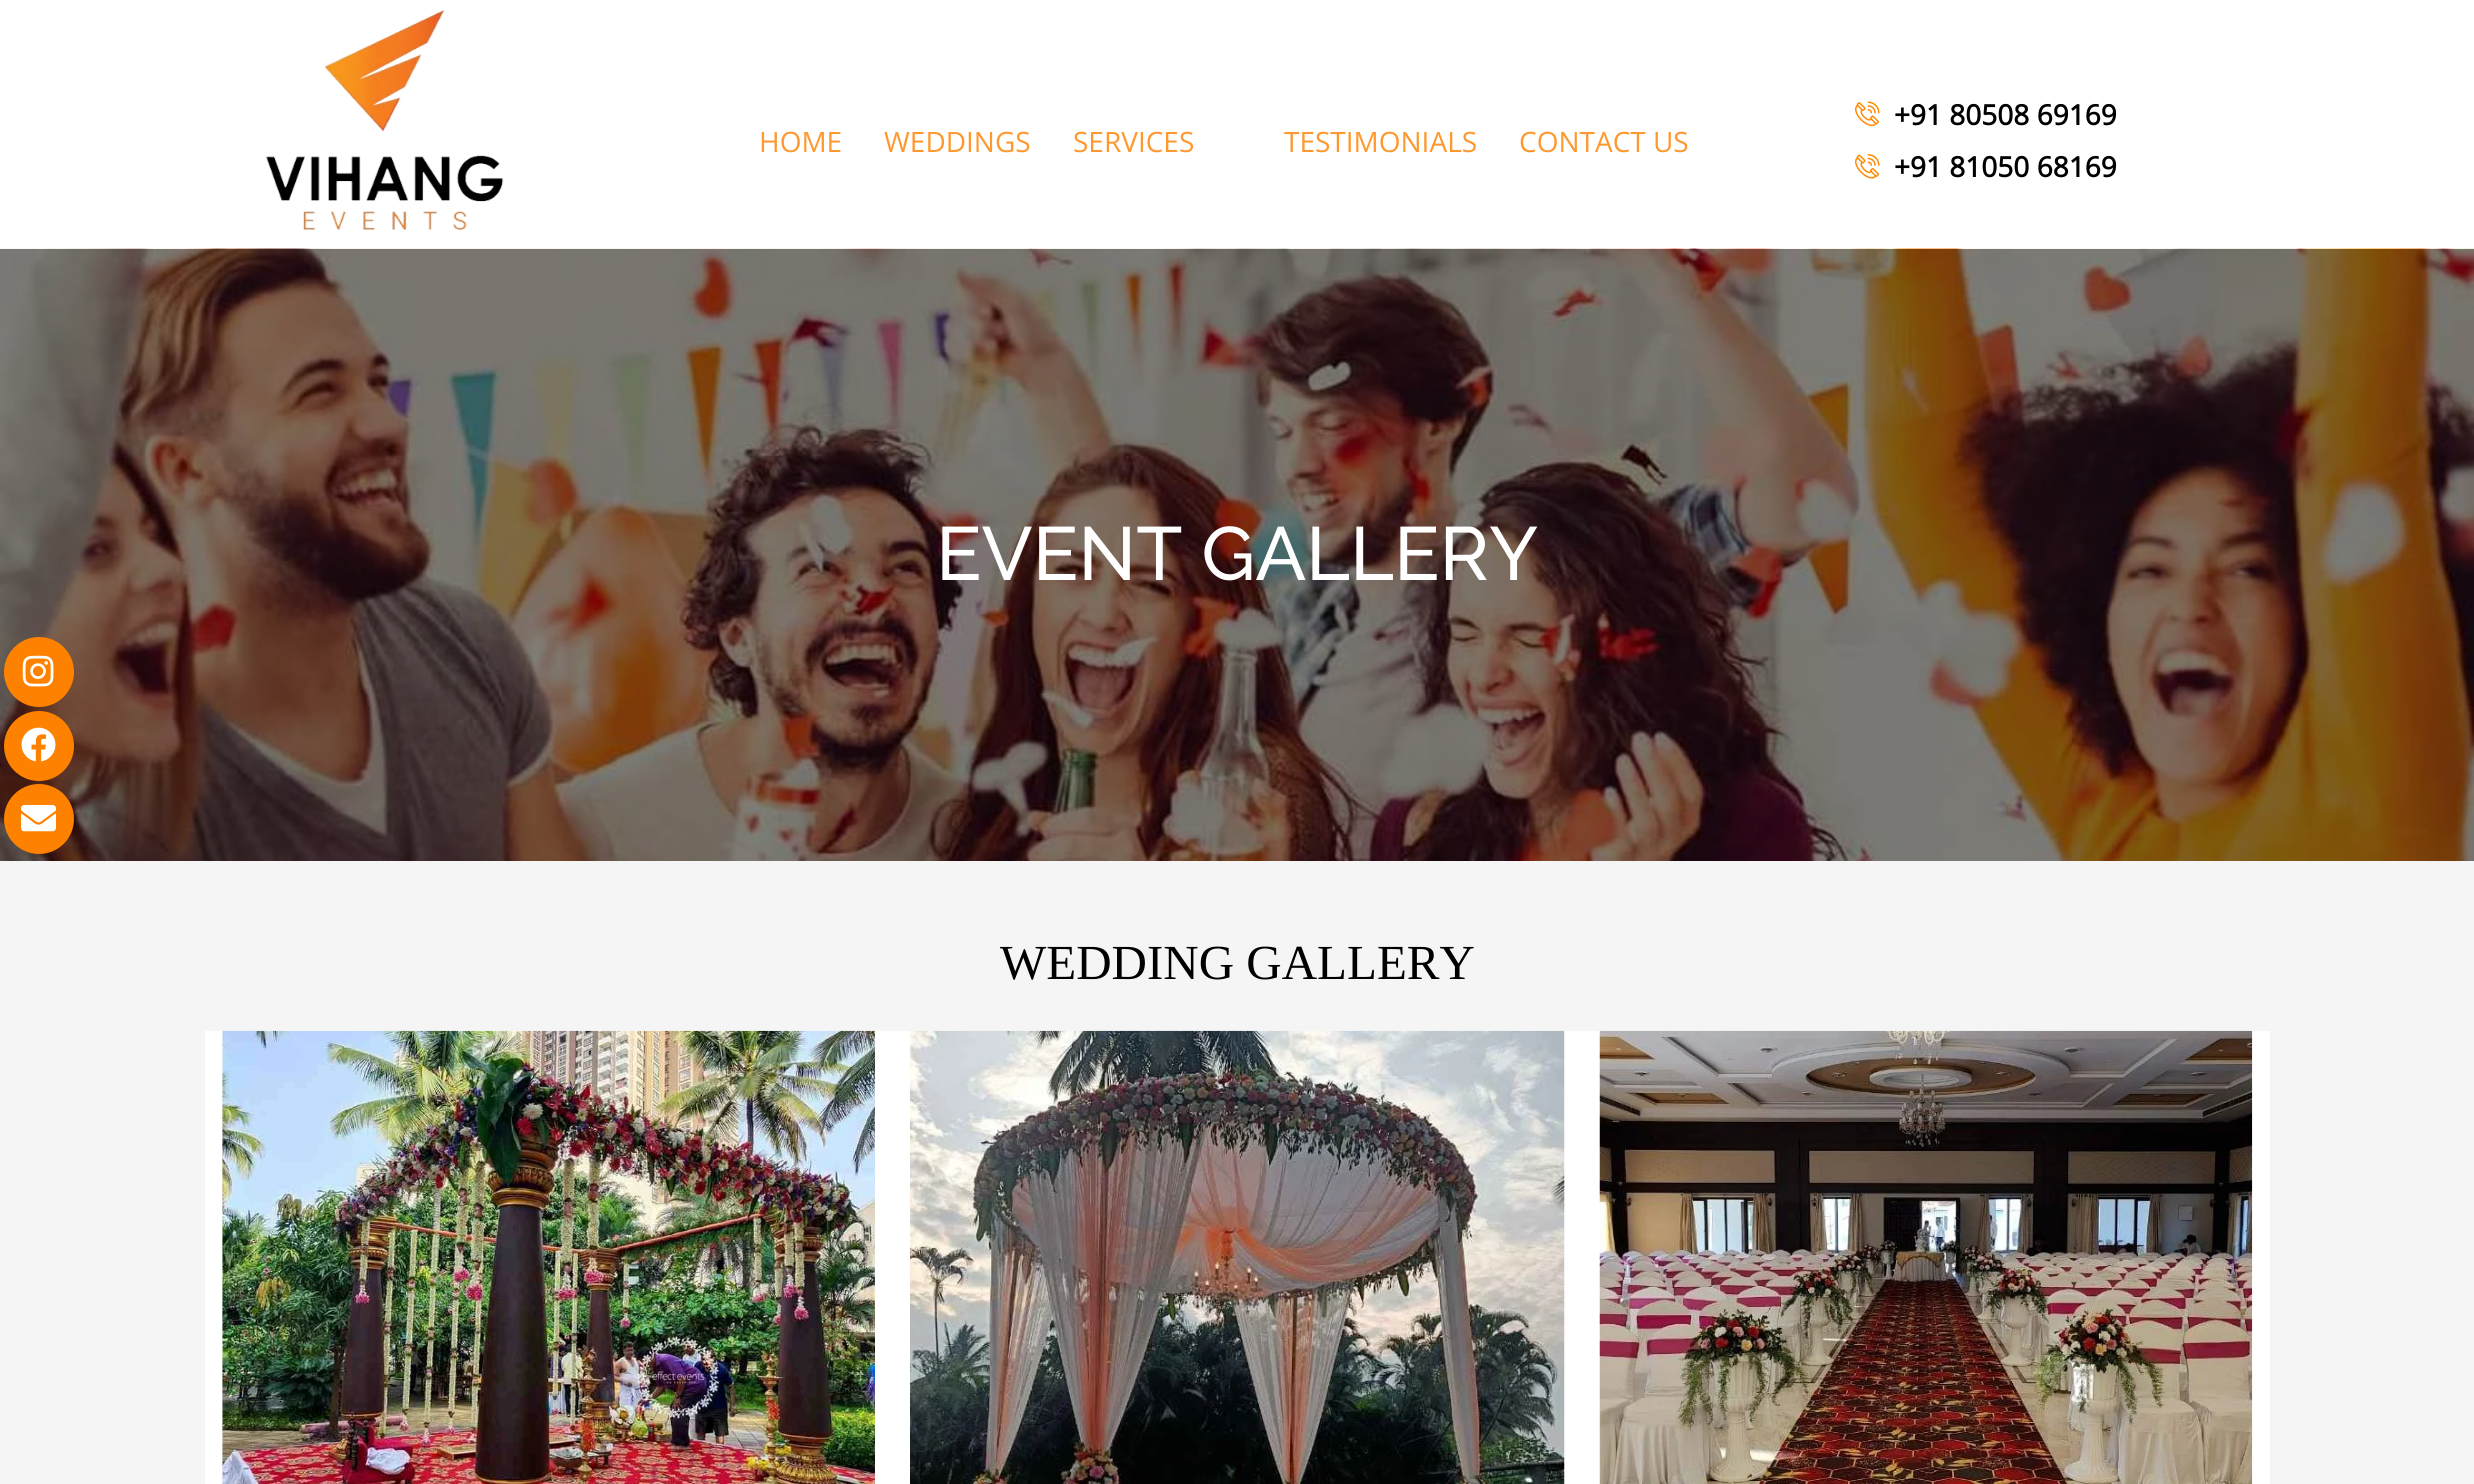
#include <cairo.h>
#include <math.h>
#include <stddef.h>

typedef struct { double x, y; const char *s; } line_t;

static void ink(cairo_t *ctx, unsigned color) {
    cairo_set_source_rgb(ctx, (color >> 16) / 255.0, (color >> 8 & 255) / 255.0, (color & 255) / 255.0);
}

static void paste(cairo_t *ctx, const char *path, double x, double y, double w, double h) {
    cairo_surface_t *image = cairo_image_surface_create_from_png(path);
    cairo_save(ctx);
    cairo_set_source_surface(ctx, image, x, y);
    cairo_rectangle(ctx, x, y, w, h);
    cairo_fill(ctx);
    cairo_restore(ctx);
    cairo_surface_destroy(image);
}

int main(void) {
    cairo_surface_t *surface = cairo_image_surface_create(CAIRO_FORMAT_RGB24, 2474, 1484);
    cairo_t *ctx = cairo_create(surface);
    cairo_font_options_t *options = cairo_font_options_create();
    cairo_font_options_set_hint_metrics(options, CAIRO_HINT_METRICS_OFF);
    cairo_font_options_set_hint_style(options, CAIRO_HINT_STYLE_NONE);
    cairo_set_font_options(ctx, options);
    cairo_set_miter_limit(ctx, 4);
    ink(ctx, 0xF5F5F5);
    cairo_paint(ctx);
    ink(ctx, 0xFFFFFF);
    cairo_rectangle(ctx, 0, 0, 2474, 249);
    cairo_fill(ctx);
    paste(ctx, "media/7.png", 0, 248, 2474, 613);
    ink(ctx, 0xFF8100);
    cairo_arc(ctx, 39, 672, 35, 0, 2 * M_PI);
    cairo_fill(ctx);
    paste(ctx, "media/1.png", 22, 655, 32, 32);
    cairo_arc(ctx, 39, 746, 35, 0, 2 * M_PI);
    cairo_fill(ctx);
    paste(ctx, "media/2.png", 21, 727, 35, 35);
    cairo_arc(ctx, 39, 819, 35, 0, 2 * M_PI);
    cairo_fill(ctx);
    paste(ctx, "media/3.png", 21, 805, 35, 27);
    paste(ctx, "media/4.png", 266, 10, 238, 221);
    cairo_select_font_face(ctx, "Open Sans", CAIRO_FONT_SLANT_NORMAL, CAIRO_FONT_WEIGHT_NORMAL);
    cairo_set_font_size(ctx, 28);
    ink(ctx, 0xFF982E);
    {
        static const line_t items[] = {
            {759, 152, "HOME"},
            {884, 152, "WEDDINGS"},
            {1073, 152, "SERVICES"},
            {1284, 152, "TESTIMONIALS"},
            {1519, 152, "CONTACT US"},
        };
        for (size_t i = 0; i < sizeof items / sizeof *items; i++) {
            cairo_move_to(ctx, items[i].x, items[i].y);
            cairo_show_text(ctx, items[i].s);
        }
    }
    paste(ctx, "media/5.png", 1855, 101, 25, 26);
    cairo_select_font_face(ctx, "Open Sans", CAIRO_FONT_SLANT_NORMAL, CAIRO_FONT_WEIGHT_BOLD);
    ink(ctx, 0x000000);
    cairo_move_to(ctx, 1894, 125);
    cairo_show_text(ctx, "+91 80508 69169");
    paste(ctx, "media/6.png", 1855, 154, 25, 25);
    cairo_move_to(ctx, 1894, 177);
    cairo_show_text(ctx, "+91 81050 68169");
    cairo_select_font_face(ctx, "Raleway Medium", CAIRO_FONT_SLANT_NORMAL, CAIRO_FONT_WEIGHT_NORMAL);
    cairo_set_font_size(ctx, 75.25);
    ink(ctx, 0xFFFFFF);
    cairo_move_to(ctx, 936, 580);
    cairo_show_text(ctx, "EVENT GALLERY");
    cairo_select_font_face(ctx, "Liberation Serif", CAIRO_FONT_SLANT_NORMAL, CAIRO_FONT_WEIGHT_NORMAL);
    cairo_set_font_size(ctx, 49);
    ink(ctx, 0x000000);
    cairo_move_to(ctx, 1000, 979);
    cairo_show_text(ctx, "WEDDING GALLERY");
    ink(ctx, 0xFFFFFF);
    cairo_rectangle(ctx, 205, 1031, 2065, 453);
    cairo_fill(ctx);
    paste(ctx, "media/8.png", 222, 1030, 653, 454);
    paste(ctx, "media/9.png", 910, 1030, 655, 454);
    paste(ctx, "media/10.png", 1599, 1030, 654, 454);
    cairo_surface_write_to_png(surface, "image.png");
    cairo_font_options_destroy(options);
    cairo_destroy(ctx);
    cairo_surface_destroy(surface);
    return 0;
}
